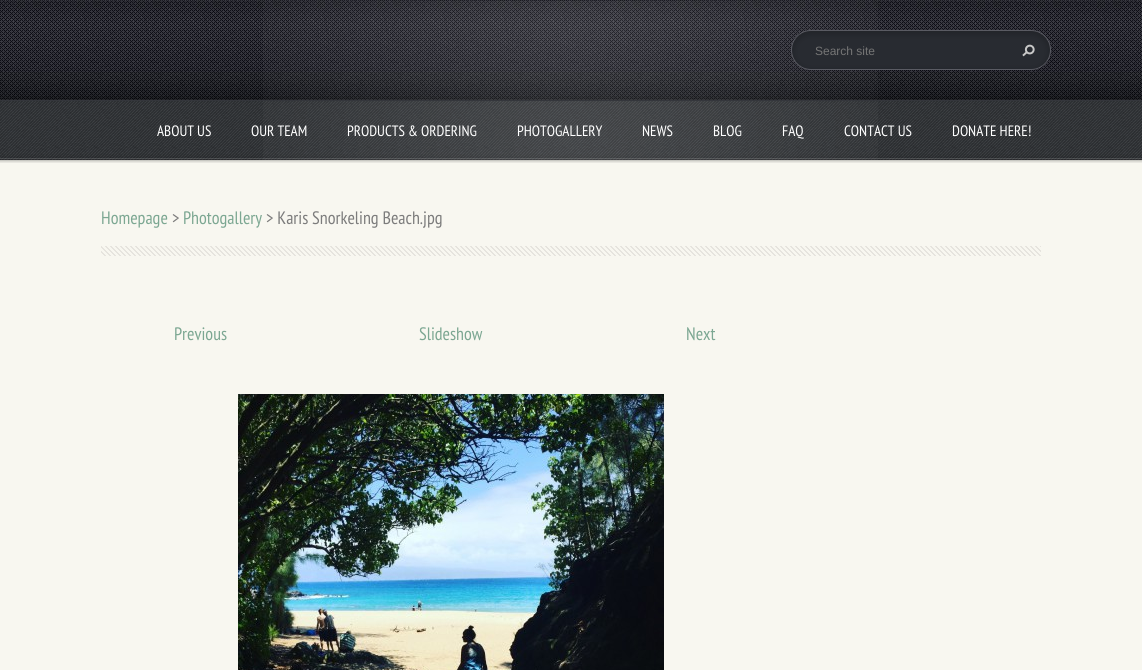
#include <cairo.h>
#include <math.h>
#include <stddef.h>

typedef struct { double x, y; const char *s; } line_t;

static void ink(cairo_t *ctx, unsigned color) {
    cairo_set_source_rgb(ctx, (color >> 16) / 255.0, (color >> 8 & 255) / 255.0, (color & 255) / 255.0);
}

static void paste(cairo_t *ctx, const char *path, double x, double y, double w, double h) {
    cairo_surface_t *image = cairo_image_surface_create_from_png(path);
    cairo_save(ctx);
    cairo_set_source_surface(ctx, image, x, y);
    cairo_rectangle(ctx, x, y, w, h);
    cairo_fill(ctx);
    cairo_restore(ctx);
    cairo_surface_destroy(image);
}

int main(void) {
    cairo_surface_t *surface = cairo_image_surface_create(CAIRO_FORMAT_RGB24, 1142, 670);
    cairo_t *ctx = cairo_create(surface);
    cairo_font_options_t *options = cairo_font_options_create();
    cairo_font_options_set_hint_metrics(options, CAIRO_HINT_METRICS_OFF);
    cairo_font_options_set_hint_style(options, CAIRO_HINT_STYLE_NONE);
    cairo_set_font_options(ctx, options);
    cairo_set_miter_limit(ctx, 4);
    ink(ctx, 0xFFFFFF);
    cairo_paint(ctx);
    paste(ctx, "media/1.png", 0, 100, 1142, 60);
    paste(ctx, "media/2.png", 0, 0, 1142, 100);
    paste(ctx, "media/3.png", 263, 1, 615, 99);
    paste(ctx, "media/4.png", 791, 30, 260, 40);
    cairo_select_font_face(ctx, "Liberation Sans", CAIRO_FONT_SLANT_NORMAL, CAIRO_FONT_WEIGHT_NORMAL);
    cairo_set_font_size(ctx, 12);
    ink(ctx, 0x757575);
    cairo_move_to(ctx, 815, 55);
    cairo_show_text(ctx, "Search site");
    paste(ctx, "media/5.png", 1022, 44, 13, 13);
    paste(ctx, "media/6.png", 0, 100, 1142, 60);
    paste(ctx, "media/7.png", 263, 101, 615, 59);
    cairo_select_font_face(ctx, "PT Sans Narrow", CAIRO_FONT_SLANT_NORMAL, CAIRO_FONT_WEIGHT_NORMAL);
    cairo_set_font_size(ctx, 15);
    ink(ctx, 0xFFFFFF);
    {
        static const line_t items[] = {
            {157, 136, "ABOUT US"},
            {251, 136, "OUR TEAM"},
            {347, 136, "PRODUCTS & ORDERING"},
            {517, 136, "PHOTOGALLERY"},
            {642, 136, "NEWS"},
            {713, 136, "BLOG"},
            {782, 136, "FAQ"},
            {844, 136, "CONTACT US"},
            {952, 136, "DONATE HERE!"},
        };
        for (size_t i = 0; i < sizeof items / sizeof *items; i++) {
            cairo_move_to(ctx, items[i].x, items[i].y);
            cairo_show_text(ctx, items[i].s);
        }
    }
    ink(ctx, 0xF8F7F0);
    cairo_rectangle(ctx, 0, 160, 1142, 510);
    cairo_fill(ctx);
    paste(ctx, "media/8.png", 0, 160, 1142, 3);
    paste(ctx, "media/9.png", 101, 246, 940, 10);
    cairo_set_font_size(ctx, 18);
    ink(ctx, 0x7CA792);
    cairo_move_to(ctx, 101, 224);
    cairo_show_text(ctx, "Homepage");
    ink(ctx, 0x7C7C7C);
    cairo_move_to(ctx, 172, 224);
    cairo_show_text(ctx, ">");
    ink(ctx, 0x7CA792);
    cairo_move_to(ctx, 183, 224);
    cairo_show_text(ctx, "Photogallery");
    ink(ctx, 0x7C7C7C);
    cairo_move_to(ctx, 266, 224);
    cairo_show_text(ctx, "> Karis Snorkeling Beach.jpg");
    ink(ctx, 0x7CA792);
    {
        static const line_t items[] = {
            {174, 340, "Previous"},
            {419, 340, "Slideshow"},
            {686, 340, "Next"},
        };
        for (size_t i = 0; i < sizeof items / sizeof *items; i++) {
            cairo_move_to(ctx, items[i].x, items[i].y);
            cairo_show_text(ctx, items[i].s);
        }
    }
    paste(ctx, "media/10.png", 238, 394, 426, 276);
    cairo_surface_write_to_png(surface, "image.png");
    cairo_font_options_destroy(options);
    cairo_destroy(ctx);
    cairo_surface_destroy(surface);
    return 0;
}
